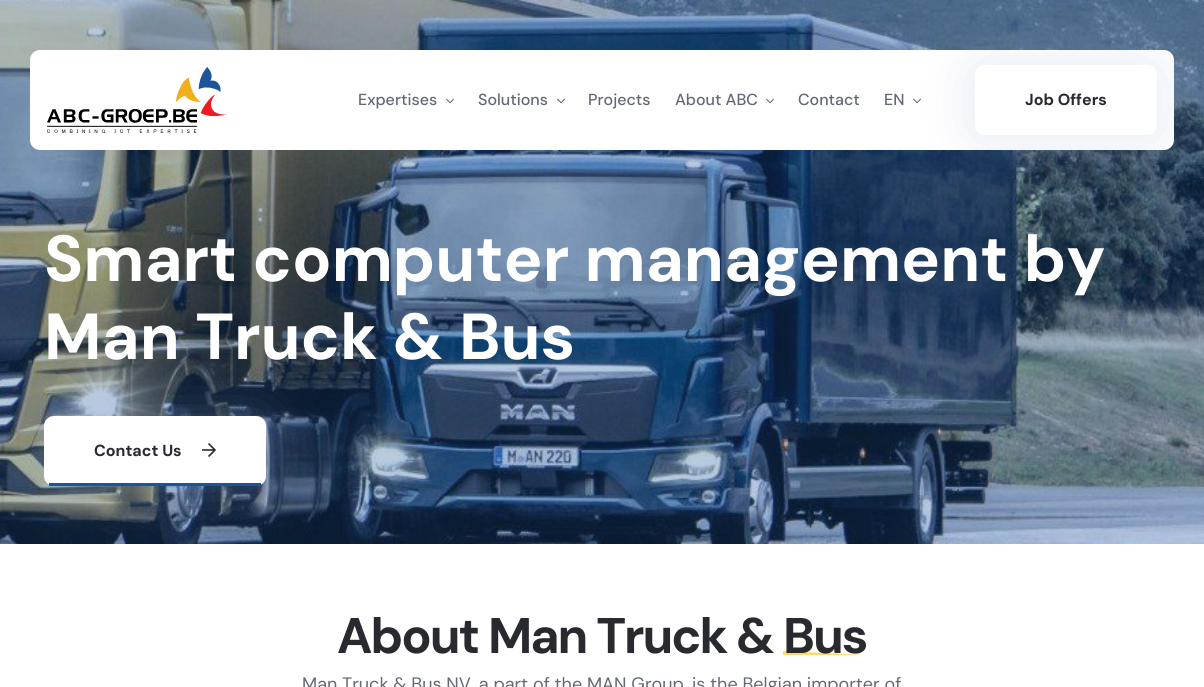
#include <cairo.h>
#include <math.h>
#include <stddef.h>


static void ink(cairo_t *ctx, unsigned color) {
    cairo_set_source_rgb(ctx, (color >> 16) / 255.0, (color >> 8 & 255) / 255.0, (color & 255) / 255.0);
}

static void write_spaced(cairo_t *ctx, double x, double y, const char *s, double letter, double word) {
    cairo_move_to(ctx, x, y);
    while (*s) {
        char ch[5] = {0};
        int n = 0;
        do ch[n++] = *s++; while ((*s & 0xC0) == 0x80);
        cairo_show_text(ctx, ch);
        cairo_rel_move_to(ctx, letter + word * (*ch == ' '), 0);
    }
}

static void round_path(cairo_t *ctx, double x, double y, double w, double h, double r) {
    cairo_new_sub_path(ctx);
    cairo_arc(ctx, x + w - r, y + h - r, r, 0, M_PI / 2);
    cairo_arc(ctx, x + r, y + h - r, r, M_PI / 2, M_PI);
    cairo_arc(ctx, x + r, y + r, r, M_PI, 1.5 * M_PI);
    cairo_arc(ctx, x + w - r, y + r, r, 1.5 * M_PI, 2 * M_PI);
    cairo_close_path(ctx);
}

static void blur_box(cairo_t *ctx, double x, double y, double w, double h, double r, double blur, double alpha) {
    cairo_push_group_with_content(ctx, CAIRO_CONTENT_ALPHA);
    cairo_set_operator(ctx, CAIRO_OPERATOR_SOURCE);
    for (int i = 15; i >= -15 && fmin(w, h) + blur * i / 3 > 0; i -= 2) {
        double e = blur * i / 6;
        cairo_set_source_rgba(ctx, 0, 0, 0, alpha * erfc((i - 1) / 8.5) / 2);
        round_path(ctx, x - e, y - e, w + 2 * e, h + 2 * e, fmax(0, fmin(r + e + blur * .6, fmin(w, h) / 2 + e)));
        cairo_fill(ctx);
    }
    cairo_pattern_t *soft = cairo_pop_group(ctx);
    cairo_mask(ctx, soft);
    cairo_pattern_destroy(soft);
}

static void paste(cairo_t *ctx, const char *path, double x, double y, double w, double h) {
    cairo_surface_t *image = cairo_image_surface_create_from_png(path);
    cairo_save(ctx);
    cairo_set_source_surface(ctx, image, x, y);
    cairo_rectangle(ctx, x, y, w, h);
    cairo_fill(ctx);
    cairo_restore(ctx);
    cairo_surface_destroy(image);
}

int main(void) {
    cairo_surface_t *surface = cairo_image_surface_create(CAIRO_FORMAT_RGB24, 1204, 687);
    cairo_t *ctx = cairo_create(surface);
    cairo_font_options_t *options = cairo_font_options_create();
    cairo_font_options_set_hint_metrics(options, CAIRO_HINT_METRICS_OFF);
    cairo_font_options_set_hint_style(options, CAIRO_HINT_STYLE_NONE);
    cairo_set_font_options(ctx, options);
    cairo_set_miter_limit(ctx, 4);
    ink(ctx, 0xFFFFFF);
    cairo_paint(ctx);
    paste(ctx, "media/3.png", 0, 0, 1204, 544);
    ink(ctx, 0xFFFFFF);
    round_path(ctx, 30, 50, 1144, 100, 10);
    cairo_fill(ctx);
    paste(ctx, "media/1.png", 47, 67, 180, 66);
    cairo_select_font_face(ctx, "DM Sans Medium", CAIRO_FONT_SLANT_NORMAL, CAIRO_FONT_WEIGHT_NORMAL);
    cairo_set_font_size(ctx, 16);
    ink(ctx, 0x636875);
    cairo_move_to(ctx, 358, 105);
    cairo_show_text(ctx, "Expertises");
    paste(ctx, "media/2.png", 446, 98, 8, 6);
    cairo_move_to(ctx, 478, 105);
    cairo_show_text(ctx, "Solutions");
    paste(ctx, "media/2.png", 557, 98, 8, 6);
    cairo_move_to(ctx, 588, 105);
    cairo_show_text(ctx, "Projects");
    cairo_move_to(ctx, 675, 105);
    cairo_show_text(ctx, "About ABC");
    paste(ctx, "media/2.png", 766, 98, 8, 6);
    cairo_move_to(ctx, 798, 105);
    cairo_show_text(ctx, "Contact");
    cairo_move_to(ctx, 884, 105);
    cairo_show_text(ctx, "EN");
    paste(ctx, "media/2.png", 913, 98, 8, 6);
    ink(ctx, 0xA8B6DA);
    blur_box(ctx, 975, 67, 182, 70, 10, 27.5, 0.32);
    ink(ctx, 0xFFFFFF);
    round_path(ctx, 975, 65, 182, 70, 10);
    cairo_fill(ctx);
    cairo_select_font_face(ctx, "DM Sans", CAIRO_FONT_SLANT_NORMAL, CAIRO_FONT_WEIGHT_BOLD);
    ink(ctx, 0x292930);
    cairo_move_to(ctx, 1025, 105);
    cairo_show_text(ctx, "Job Offers");
    cairo_set_font_size(ctx, 65);
    ink(ctx, 0xFFFFFF);
    cairo_move_to(ctx, 44, 281);
    cairo_show_text(ctx, "Smart computer management by");
    cairo_move_to(ctx, 44, 359);
    cairo_show_text(ctx, "Man Truck & Bus");
    ink(ctx, 0xA8B6DA);
    blur_box(ctx, 44, 418, 222, 70, 10, 27.5, 0.32);
    ink(ctx, 0xFFFFFF);
    round_path(ctx, 44, 416, 222, 70, 10);
    cairo_fill(ctx);
    ink(ctx, 0x1A559B);
    cairo_rectangle(ctx, 49, 483, 212, 3);
    cairo_fill(ctx);
    cairo_set_font_size(ctx, 16);
    ink(ctx, 0x292930);
    cairo_move_to(ctx, 94, 456);
    cairo_show_text(ctx, "Contact Us");
    paste(ctx, "media/4.png", 202, 443, 14, 14);
    cairo_set_font_size(ctx, 50);
    write_spaced(ctx, 337, 653, "About Man Truck &", -2, 0);
    cairo_save(ctx);
    cairo_rectangle(ctx, 783, 646, 84, 14);
    cairo_clip(ctx);
    ink(ctx, 0xFFDC60);
    cairo_new_path(ctx);
    cairo_move_to(ctx, 782, 651);
    cairo_line_to(ctx, 865, 655);
    cairo_line_to(ctx, 782, 655);
    cairo_close_path(ctx);
    cairo_fill(ctx);
    cairo_restore(ctx);
    write_spaced(ctx, 783, 653, "Bus", -2, 0);
    cairo_select_font_face(ctx, "DM Sans", CAIRO_FONT_SLANT_NORMAL, CAIRO_FONT_WEIGHT_NORMAL);
    cairo_set_font_size(ctx, 18);
    ink(ctx, 0x636875);
    cairo_move_to(ctx, 302, 690);
    cairo_show_text(ctx, "Man Truck & Bus NV, a part of the MAN Group, is the Belgian importer of");
    cairo_surface_write_to_png(surface, "image.png");
    cairo_font_options_destroy(options);
    cairo_destroy(ctx);
    cairo_surface_destroy(surface);
    return 0;
}
